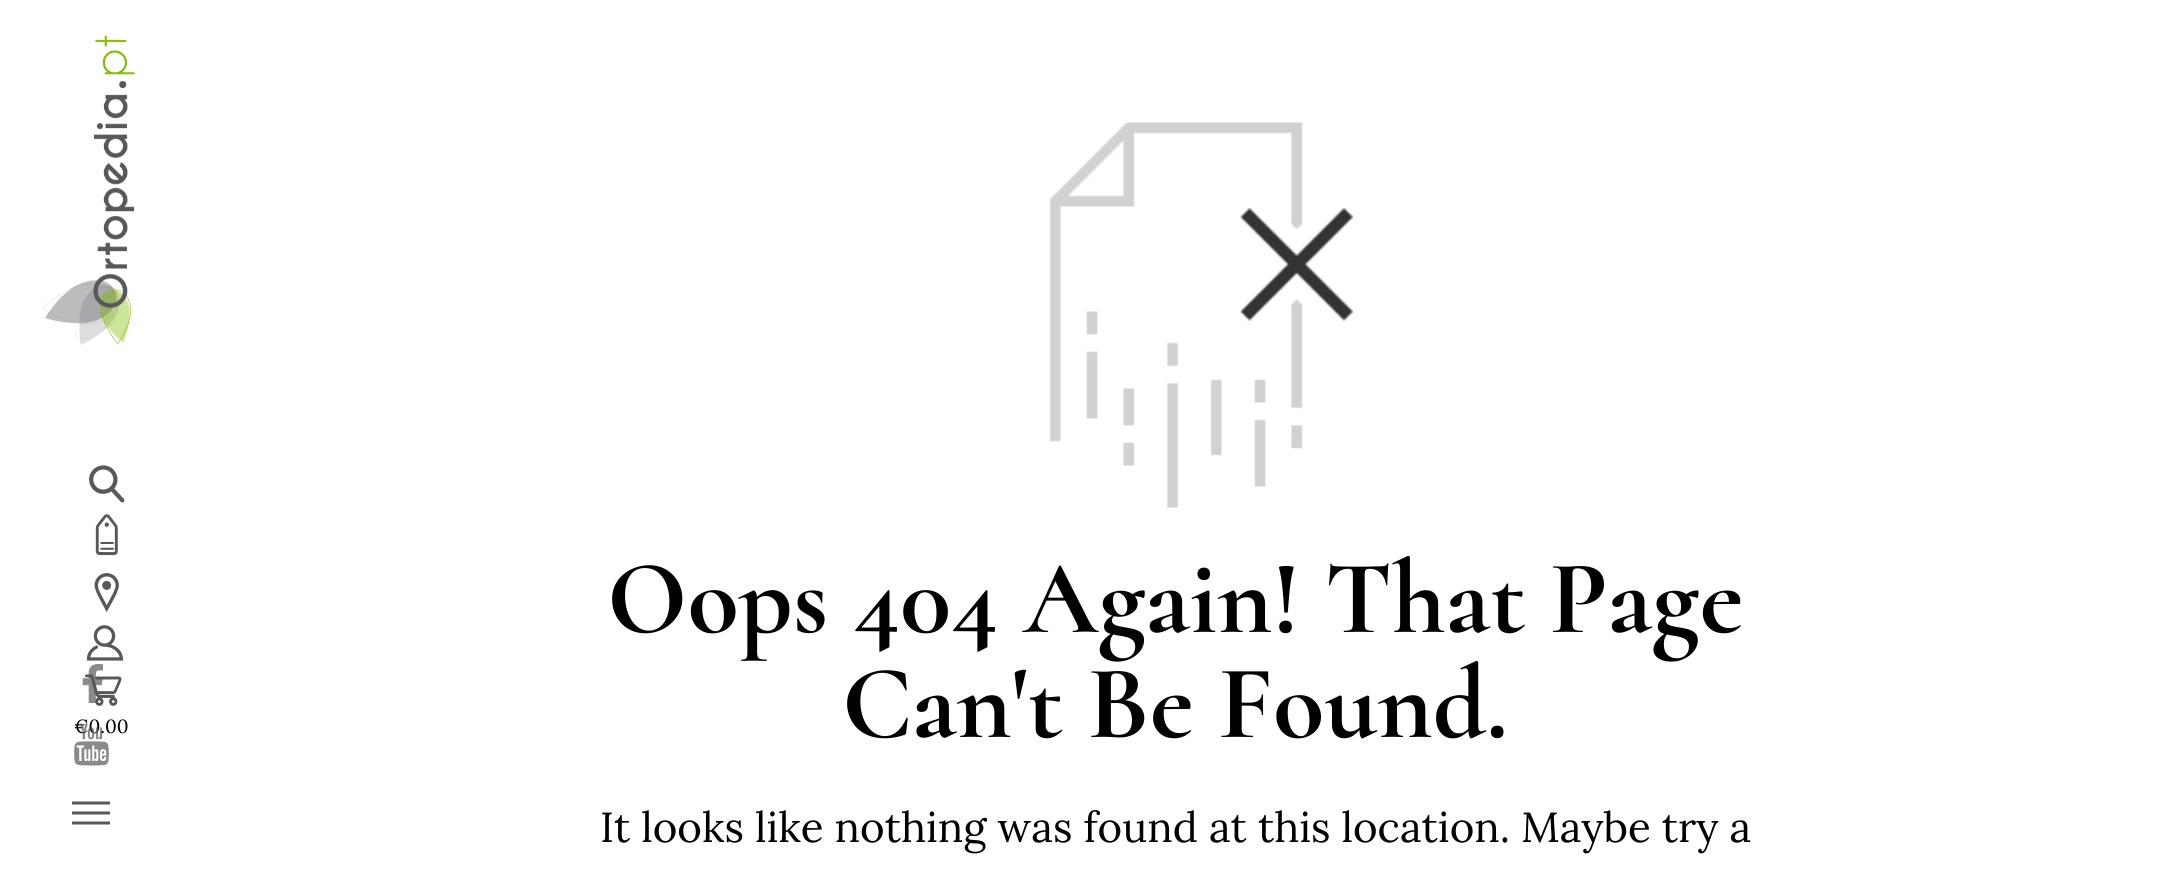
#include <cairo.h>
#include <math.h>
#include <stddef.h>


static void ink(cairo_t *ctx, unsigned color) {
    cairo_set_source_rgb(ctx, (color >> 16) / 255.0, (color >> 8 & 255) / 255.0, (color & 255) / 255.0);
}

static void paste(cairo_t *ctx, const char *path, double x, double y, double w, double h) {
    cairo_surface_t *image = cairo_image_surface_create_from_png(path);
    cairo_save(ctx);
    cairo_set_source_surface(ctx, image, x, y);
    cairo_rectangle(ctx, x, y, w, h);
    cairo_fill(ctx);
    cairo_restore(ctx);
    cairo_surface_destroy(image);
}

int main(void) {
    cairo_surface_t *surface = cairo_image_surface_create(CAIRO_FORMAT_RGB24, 2165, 878);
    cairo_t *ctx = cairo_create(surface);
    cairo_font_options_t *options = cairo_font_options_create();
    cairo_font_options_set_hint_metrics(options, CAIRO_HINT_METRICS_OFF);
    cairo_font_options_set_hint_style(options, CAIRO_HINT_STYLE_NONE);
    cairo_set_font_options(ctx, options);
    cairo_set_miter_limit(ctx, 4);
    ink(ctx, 0xFFFFFF);
    cairo_paint(ctx);
    paste(ctx, "media/1.png", 42, 35, 93, 310);
    paste(ctx, "media/8.png", 85, 674, 37, 32);
    paste(ctx, "media/2.png", 82, 664, 21, 39);
    cairo_select_font_face(ctx, "Lora", CAIRO_FONT_SLANT_NORMAL, CAIRO_FONT_WEIGHT_NORMAL);
    cairo_set_font_size(ctx, 19);
    ink(ctx, 0x000000);
    cairo_move_to(ctx, 74, 733);
    cairo_show_text(ctx, "€0.00");
    paste(ctx, "media/3.png", 74, 723, 35, 43);
    ink(ctx, 0x57585B);
    cairo_new_path(ctx);
    cairo_move_to(ctx, 72, 801.5);
    cairo_line_to(ctx, 110, 801.5);
    cairo_line_to(ctx, 110, 804.5);
    cairo_line_to(ctx, 72, 804.5);
    cairo_close_path(ctx);
    cairo_move_to(ctx, 72, 811.5);
    cairo_line_to(ctx, 110, 811.5);
    cairo_line_to(ctx, 110, 814.5);
    cairo_line_to(ctx, 72, 814.5);
    cairo_close_path(ctx);
    cairo_move_to(ctx, 72, 821.5);
    cairo_line_to(ctx, 110, 821.5);
    cairo_line_to(ctx, 110, 824.5);
    cairo_line_to(ctx, 72, 824.5);
    cairo_close_path(ctx);
    cairo_fill(ctx);
    paste(ctx, "media/4.png", 89, 465, 36, 38);
    paste(ctx, "media/5.png", 95, 514, 23, 42);
    paste(ctx, "media/6.png", 94, 573, 25, 40);
    paste(ctx, "media/7.png", 86, 625, 38, 36);
    paste(ctx, "media/9.png", 1049, 122, 304, 386);
    cairo_select_font_face(ctx, "Cormorant", CAIRO_FONT_SLANT_NORMAL, CAIRO_FONT_WEIGHT_BOLD);
    cairo_set_font_size(ctx, 105);
    ink(ctx, 0x000000);
    cairo_move_to(ctx, 607, 632);
    cairo_show_text(ctx, "Oops 404 Again! That Page");
    cairo_move_to(ctx, 842, 737);
    cairo_show_text(ctx, "Can't Be Found.");
    cairo_select_font_face(ctx, "Lora", CAIRO_FONT_SLANT_NORMAL, CAIRO_FONT_WEIGHT_NORMAL);
    cairo_set_font_size(ctx, 42);
    cairo_move_to(ctx, 600, 842);
    cairo_show_text(ctx, "It looks like nothing was found at this location. Maybe try a");
    cairo_surface_write_to_png(surface, "image.png");
    cairo_font_options_destroy(options);
    cairo_destroy(ctx);
    cairo_surface_destroy(surface);
    return 0;
}
